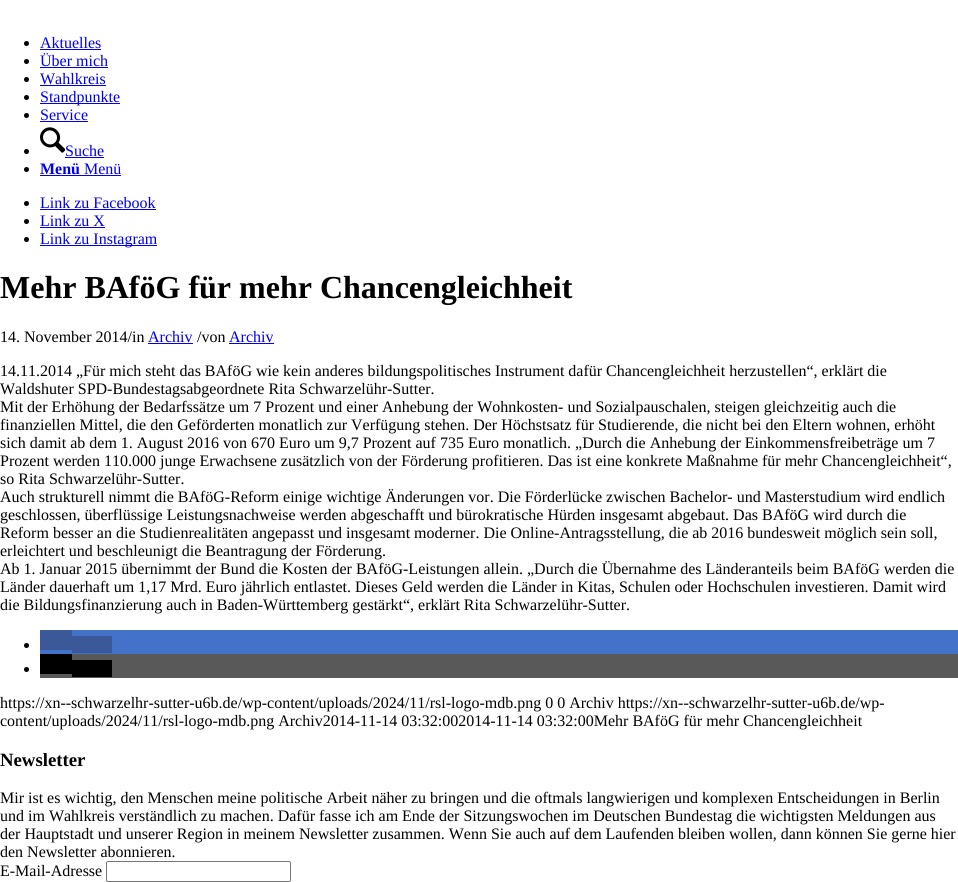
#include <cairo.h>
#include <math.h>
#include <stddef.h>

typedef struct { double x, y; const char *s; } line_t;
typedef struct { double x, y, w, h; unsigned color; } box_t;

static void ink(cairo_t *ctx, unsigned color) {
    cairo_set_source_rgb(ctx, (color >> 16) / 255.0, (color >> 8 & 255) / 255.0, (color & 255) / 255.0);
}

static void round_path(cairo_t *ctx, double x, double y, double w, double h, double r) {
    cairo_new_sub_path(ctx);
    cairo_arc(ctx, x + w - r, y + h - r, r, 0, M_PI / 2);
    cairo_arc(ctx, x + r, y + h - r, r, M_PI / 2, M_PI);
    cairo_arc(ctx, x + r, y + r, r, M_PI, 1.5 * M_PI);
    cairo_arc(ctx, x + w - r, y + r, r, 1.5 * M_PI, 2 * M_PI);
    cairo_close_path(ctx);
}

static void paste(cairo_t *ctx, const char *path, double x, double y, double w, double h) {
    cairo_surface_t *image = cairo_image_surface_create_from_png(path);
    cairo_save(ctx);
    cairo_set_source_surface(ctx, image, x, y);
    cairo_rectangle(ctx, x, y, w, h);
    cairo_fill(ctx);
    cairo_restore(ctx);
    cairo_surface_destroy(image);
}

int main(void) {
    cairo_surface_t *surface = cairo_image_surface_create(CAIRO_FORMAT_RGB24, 958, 882);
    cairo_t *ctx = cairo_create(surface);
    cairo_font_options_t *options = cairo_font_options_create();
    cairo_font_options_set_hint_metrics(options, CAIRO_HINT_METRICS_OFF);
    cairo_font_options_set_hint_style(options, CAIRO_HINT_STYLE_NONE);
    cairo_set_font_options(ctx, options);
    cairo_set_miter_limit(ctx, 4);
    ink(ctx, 0xFFFFFF);
    cairo_paint(ctx);
    ink(ctx, 0x000000);
    cairo_arc(ctx, 26.5, 43.5, 2.5, 0, 2 * M_PI);
    cairo_fill(ctx);
    cairo_select_font_face(ctx, "Liberation Serif", CAIRO_FONT_SLANT_NORMAL, CAIRO_FONT_WEIGHT_NORMAL);
    cairo_set_font_size(ctx, 16);
    ink(ctx, 0x0000EE);
    cairo_move_to(ctx, 40, 48);
    cairo_show_text(ctx, "Aktuelles");
    cairo_rectangle(ctx, 40, 49, 61, 1);
    cairo_fill(ctx);
    ink(ctx, 0x000000);
    cairo_arc(ctx, 26.5, 61.5, 2.5, 0, 2 * M_PI);
    cairo_fill(ctx);
    ink(ctx, 0x0000EE);
    cairo_move_to(ctx, 40, 66);
    cairo_show_text(ctx, "Über mich");
    cairo_rectangle(ctx, 40, 67, 68, 1);
    cairo_fill(ctx);
    ink(ctx, 0x000000);
    cairo_arc(ctx, 26.5, 79.5, 2.5, 0, 2 * M_PI);
    cairo_fill(ctx);
    ink(ctx, 0x0000EE);
    cairo_move_to(ctx, 40, 84);
    cairo_show_text(ctx, "Wahlkreis");
    cairo_rectangle(ctx, 40, 85, 66, 1);
    cairo_fill(ctx);
    ink(ctx, 0x000000);
    cairo_arc(ctx, 26.5, 97.5, 2.5, 0, 2 * M_PI);
    cairo_fill(ctx);
    ink(ctx, 0x0000EE);
    cairo_rectangle(ctx, 40, 103, 80, 1);
    cairo_fill(ctx);
    cairo_move_to(ctx, 40, 102);
    cairo_show_text(ctx, "Standpunkte");
    ink(ctx, 0x000000);
    cairo_new_path(ctx);
    cairo_arc(ctx, 26.5, 115.5, 2.5, 0, 2 * M_PI);
    cairo_fill(ctx);
    ink(ctx, 0x0000EE);
    cairo_move_to(ctx, 40, 120);
    cairo_show_text(ctx, "Service");
    cairo_rectangle(ctx, 40, 121, 48, 1);
    cairo_fill(ctx);
    ink(ctx, 0x000000);
    cairo_arc(ctx, 26.5, 151.5, 2.5, 0, 2 * M_PI);
    cairo_fill(ctx);
    paste(ctx, "media/1.png", 40, 127, 25, 26);
    ink(ctx, 0x0000EE);
    cairo_move_to(ctx, 65, 156);
    cairo_show_text(ctx, "Suche");
    cairo_rectangle(ctx, 65, 157, 39, 1);
    cairo_fill(ctx);
    ink(ctx, 0x000000);
    cairo_arc(ctx, 26.5, 169.5, 2.5, 0, 2 * M_PI);
    cairo_fill(ctx);
    cairo_select_font_face(ctx, "Liberation Serif", CAIRO_FONT_SLANT_NORMAL, CAIRO_FONT_WEIGHT_BOLD);
    ink(ctx, 0x0000EE);
    cairo_move_to(ctx, 40, 174);
    cairo_show_text(ctx, "Menü");
    cairo_rectangle(ctx, 40, 175, 81, 1);
    cairo_fill(ctx);
    cairo_select_font_face(ctx, "Liberation Serif", CAIRO_FONT_SLANT_NORMAL, CAIRO_FONT_WEIGHT_NORMAL);
    cairo_move_to(ctx, 84, 174);
    cairo_show_text(ctx, "Menü");
    ink(ctx, 0x000000);
    cairo_new_path(ctx);
    cairo_arc(ctx, 26.5, 203.5, 2.5, 0, 2 * M_PI);
    cairo_fill(ctx);
    ink(ctx, 0x0000EE);
    cairo_move_to(ctx, 40, 208);
    cairo_show_text(ctx, "Link zu Facebook");
    cairo_rectangle(ctx, 40, 209, 116, 1);
    cairo_fill(ctx);
    ink(ctx, 0x000000);
    cairo_arc(ctx, 26.5, 221.5, 2.5, 0, 2 * M_PI);
    cairo_fill(ctx);
    ink(ctx, 0x0000EE);
    cairo_move_to(ctx, 40, 226);
    cairo_show_text(ctx, "Link zu X");
    cairo_rectangle(ctx, 40, 227, 65, 1);
    cairo_fill(ctx);
    ink(ctx, 0x000000);
    cairo_arc(ctx, 26.5, 239.5, 2.5, 0, 2 * M_PI);
    cairo_fill(ctx);
    ink(ctx, 0x0000EE);
    cairo_rectangle(ctx, 40, 245, 117, 1);
    cairo_fill(ctx);
    cairo_move_to(ctx, 40, 244);
    cairo_show_text(ctx, "Link zu Instagram");
    cairo_select_font_face(ctx, "Liberation Serif", CAIRO_FONT_SLANT_NORMAL, CAIRO_FONT_WEIGHT_BOLD);
    cairo_set_font_size(ctx, 32);
    ink(ctx, 0x000000);
    cairo_move_to(ctx, 0, 298);
    cairo_show_text(ctx, "Mehr BAföG für mehr Chancengleichheit");
    cairo_select_font_face(ctx, "Liberation Serif", CAIRO_FONT_SLANT_NORMAL, CAIRO_FONT_WEIGHT_NORMAL);
    cairo_set_font_size(ctx, 16);
    cairo_move_to(ctx, 0, 342);
    cairo_show_text(ctx, "14. November 2014/in");
    ink(ctx, 0x0000EE);
    cairo_move_to(ctx, 148, 342);
    cairo_show_text(ctx, "Archiv");
    cairo_rectangle(ctx, 148, 343, 45, 1);
    cairo_fill(ctx);
    ink(ctx, 0x000000);
    cairo_move_to(ctx, 197, 342);
    cairo_show_text(ctx, "/von");
    ink(ctx, 0x0000EE);
    cairo_move_to(ctx, 229, 342);
    cairo_show_text(ctx, "Archiv");
    cairo_rectangle(ctx, 229, 343, 45, 1);
    cairo_fill(ctx);
    ink(ctx, 0x000000);
    {
        static const line_t items[] = {
            {0, 376, "14.11.2014 „Für mich steht das BAföG wie kein anderes bildungspolitisches Instrument dafür Chancengleichheit herzustellen“, erklärt die"},
            {0, 394, "Waldshuter SPD-Bundestagsabgeordnete Rita Schwarzelühr-Sutter."},
            {0, 412, "Mit der Erhöhung der Bedarfssätze um 7 Prozent und einer Anhebung der Wohnkosten- und Sozialpauschalen, steigen gleichzeitig auch die"},
            {0, 430, "finanziellen Mittel, die den Geförderten monatlich zur Verfügung stehen. Der Höchstsatz für Studierende, die nicht bei den Eltern wohnen, erhöht"},
            {0, 448, "sich damit ab dem 1. August 2016 von 670 Euro um 9,7 Prozent auf 735 Euro monatlich. „Durch die Anhebung der Einkommensfreibeträge um 7"},
            {0, 466, "Prozent werden 110.000 junge Erwachsene zusätzlich von der Förderung profitieren. Das ist eine konkrete Maßnahme für mehr Chancengleichheit“,"},
            {0, 484, "so Rita Schwarzelühr-Sutter."},
            {0, 502, "Auch strukturell nimmt die BAföG-Reform einige wichtige Änderungen vor. Die Förderlücke zwischen Bachelor- und Masterstudium wird endlich"},
            {0, 520, "geschlossen, überflüssige Leistungsnachweise werden abgeschafft und bürokratische Hürden insgesamt abgebaut. Das BAföG wird durch die"},
            {0, 538, "Reform besser an die Studienrealitäten angepasst und insgesamt moderner. Die Online-Antragsstellung, die ab 2016 bundesweit möglich sein soll,"},
            {0, 556, "erleichtert und beschleunigt die Beantragung der Förderung."},
            {0, 574, "Ab 1. Januar 2015 übernimmt der Bund die Kosten der BAföG-Leistungen allein. „Durch die Übernahme des Länderanteils beim BAföG werden die"},
            {0, 592, "Länder dauerhaft um 1,17 Mrd. Euro jährlich entlastet. Dieses Geld werden die Länder in Kitas, Schulen oder Hochschulen investieren. Damit wird"},
            {0, 610, "die Bildungsfinanzierung auch in Baden-Württemberg gestärkt“, erklärt Rita Schwarzelühr-Sutter."},
        };
        for (size_t i = 0; i < sizeof items / sizeof *items; i++) {
            cairo_move_to(ctx, items[i].x, items[i].y);
            cairo_show_text(ctx, items[i].s);
        }
    }
    ink(ctx, 0x4273C8);
    cairo_rectangle(ctx, 40, 630, 918, 24);
    cairo_fill(ctx);
    ink(ctx, 0x000000);
    cairo_arc(ctx, 26.5, 645.5, 2.5, 0, 2 * M_PI);
    cairo_fill(ctx);
    {
        static const box_t items[] = {
            {40, 630, 32, 20, 0x3B5998},
            {72, 636, 40, 17, 0x3B5998},
            {40, 654, 918, 24, 0x595959},
        };
        for (size_t i = 0; i < sizeof items / sizeof *items; i++) {
            ink(ctx, items[i].color);
            cairo_rectangle(ctx, items[i].x, items[i].y, items[i].w, items[i].h);
            cairo_fill(ctx);
        }
    }
    ink(ctx, 0x000000);
    cairo_arc(ctx, 26.5, 669.5, 2.5, 0, 2 * M_PI);
    cairo_fill(ctx);
    cairo_rectangle(ctx, 40, 654, 32, 20);
    cairo_fill(ctx);
    cairo_rectangle(ctx, 72, 660, 40, 17);
    cairo_fill(ctx);
    cairo_move_to(ctx, 0, 708);
    cairo_show_text(ctx, "https://xn--schwarzelhr-sutter-u6b.de/wp-content/uploads/2024/11/rsl-logo-mdb.png 0 0 Archiv https://xn--schwarzelhr-sutter-u6b.de/wp-");
    cairo_move_to(ctx, 0, 726);
    cairo_show_text(ctx, "content/uploads/2024/11/rsl-logo-mdb.png Archiv2014-11-14 03:32:002014-11-14 03:32:00Mehr BAföG für mehr Chancengleichheit");
    cairo_select_font_face(ctx, "Liberation Serif", CAIRO_FONT_SLANT_NORMAL, CAIRO_FONT_WEIGHT_BOLD);
    cairo_set_font_size(ctx, 18.75);
    cairo_move_to(ctx, 0, 766);
    cairo_show_text(ctx, "Newsletter");
    cairo_select_font_face(ctx, "Liberation Serif", CAIRO_FONT_SLANT_NORMAL, CAIRO_FONT_WEIGHT_NORMAL);
    cairo_set_font_size(ctx, 16);
    {
        static const line_t items[] = {
            {0, 803, "Mir ist es wichtig, den Menschen meine politische Arbeit näher zu bringen und die oftmals langwierigen und komplexen Entscheidungen in Berlin"},
            {0, 821, "und im Wahlkreis verständlich zu machen. Dafür fasse ich am Ende der Sitzungswochen im Deutschen Bundestag die wichtigsten Meldungen aus"},
            {0, 839, "der Hauptstadt und unserer Region in meinem Newsletter zusammen. Wenn Sie auch auf dem Laufenden bleiben wollen, dann können Sie gerne hier"},
            {0, 857, "den Newsletter abonnieren."},
            {0, 876, "E-Mail-Adresse"},
        };
        for (size_t i = 0; i < sizeof items / sizeof *items; i++) {
            cairo_move_to(ctx, items[i].x, items[i].y);
            cairo_show_text(ctx, items[i].s);
        }
    }
    round_path(ctx, 106.5, 861.5, 184, 20, 1.5);
    ink(ctx, 0x767676);
    cairo_set_line_width(ctx, 1);
    cairo_stroke(ctx);
    cairo_surface_write_to_png(surface, "image.png");
    cairo_font_options_destroy(options);
    cairo_destroy(ctx);
    cairo_surface_destroy(surface);
    return 0;
}
